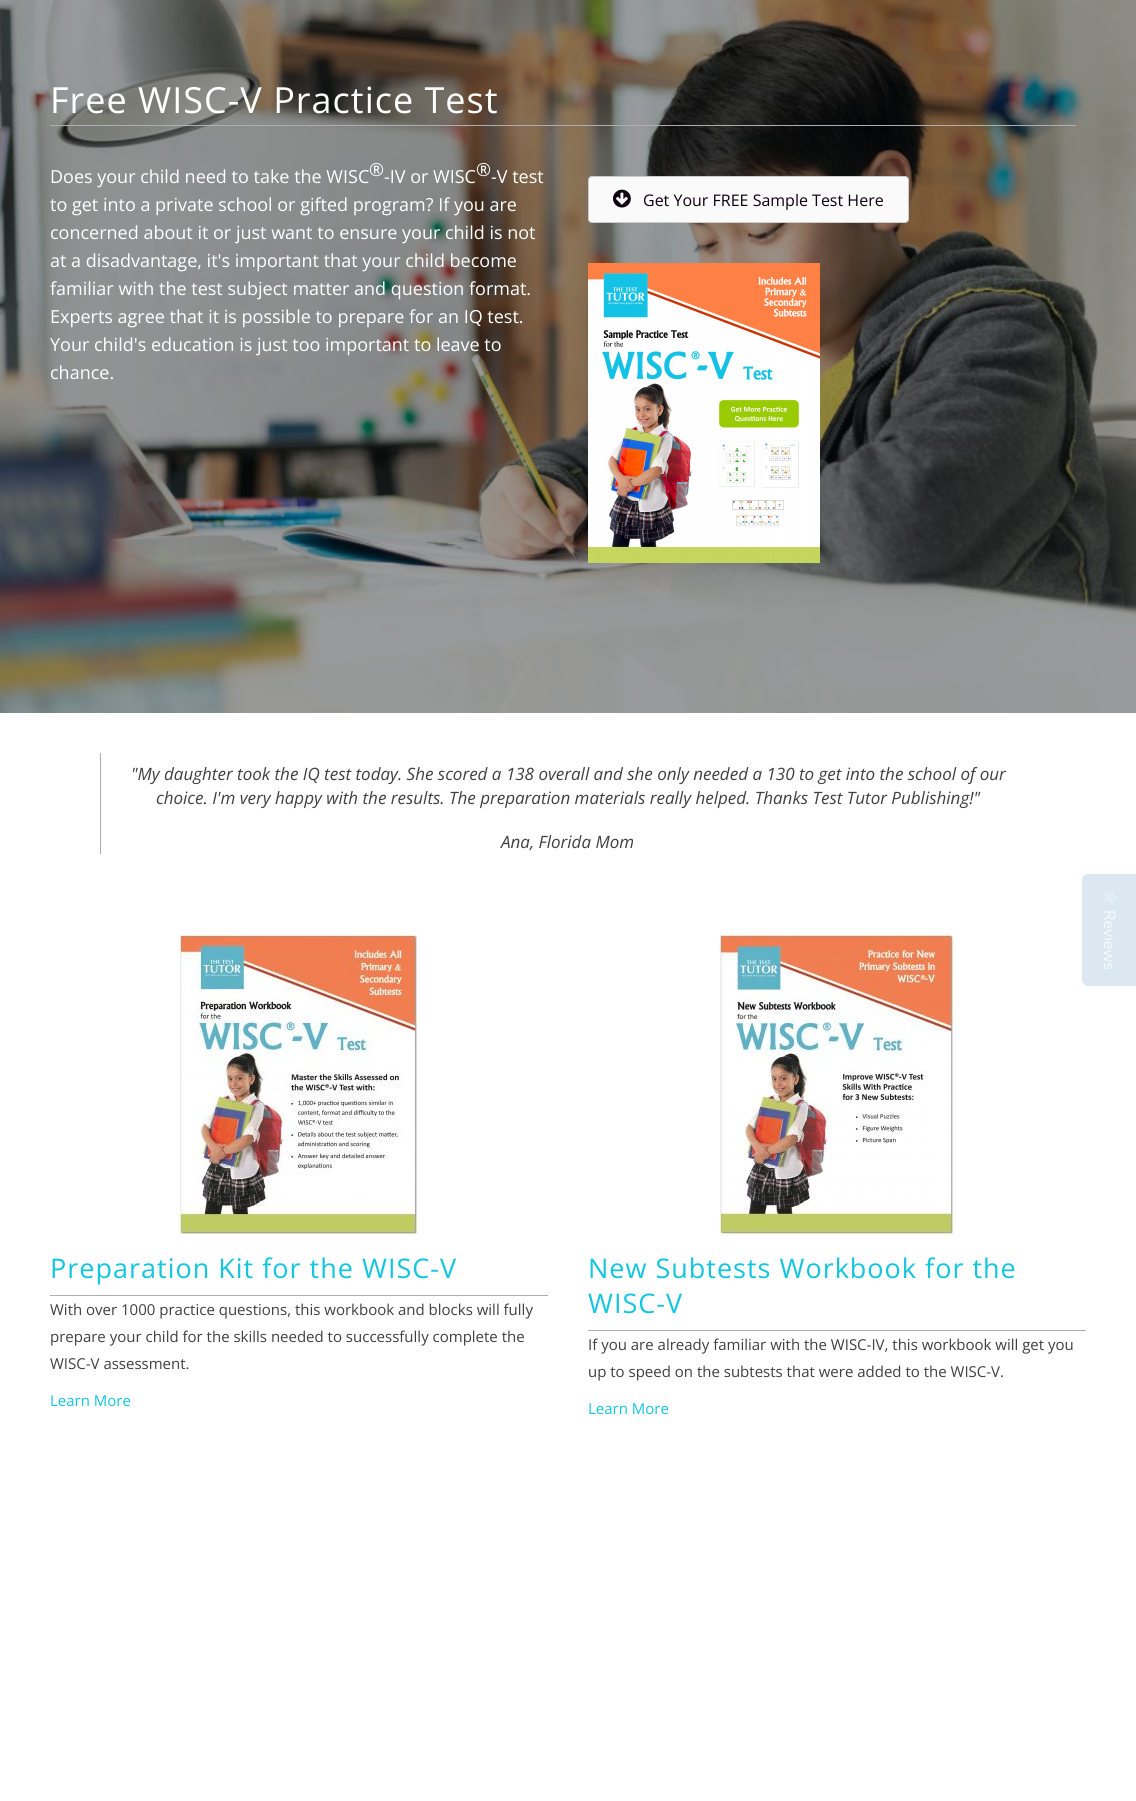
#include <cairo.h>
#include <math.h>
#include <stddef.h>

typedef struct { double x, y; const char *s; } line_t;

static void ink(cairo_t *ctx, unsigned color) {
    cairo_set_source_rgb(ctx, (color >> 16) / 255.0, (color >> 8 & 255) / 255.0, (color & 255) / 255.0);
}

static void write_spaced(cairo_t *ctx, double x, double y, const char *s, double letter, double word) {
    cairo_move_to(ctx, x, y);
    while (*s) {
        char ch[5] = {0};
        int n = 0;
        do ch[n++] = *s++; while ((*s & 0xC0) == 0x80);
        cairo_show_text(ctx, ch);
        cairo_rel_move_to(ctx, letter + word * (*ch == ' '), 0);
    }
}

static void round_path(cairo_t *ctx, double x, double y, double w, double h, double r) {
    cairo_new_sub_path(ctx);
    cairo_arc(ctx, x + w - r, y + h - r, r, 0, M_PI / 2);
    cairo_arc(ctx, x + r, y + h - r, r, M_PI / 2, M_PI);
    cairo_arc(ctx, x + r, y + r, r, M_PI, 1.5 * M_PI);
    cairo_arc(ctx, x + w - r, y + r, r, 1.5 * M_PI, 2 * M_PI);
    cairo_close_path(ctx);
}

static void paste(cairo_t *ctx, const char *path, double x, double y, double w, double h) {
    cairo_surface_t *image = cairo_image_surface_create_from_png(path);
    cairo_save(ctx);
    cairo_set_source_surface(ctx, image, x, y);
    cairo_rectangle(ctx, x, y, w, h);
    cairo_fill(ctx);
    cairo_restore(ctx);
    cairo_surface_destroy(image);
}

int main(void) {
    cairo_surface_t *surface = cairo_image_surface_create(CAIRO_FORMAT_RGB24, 1136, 1801);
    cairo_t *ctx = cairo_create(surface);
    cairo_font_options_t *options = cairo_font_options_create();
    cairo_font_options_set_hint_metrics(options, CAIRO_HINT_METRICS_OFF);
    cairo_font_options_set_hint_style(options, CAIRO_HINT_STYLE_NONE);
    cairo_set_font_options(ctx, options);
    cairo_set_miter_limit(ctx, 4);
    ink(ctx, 0xFFFFFF);
    cairo_paint(ctx);
    paste(ctx, "media/1.png", 0, 0, 1136, 713);
    ink(ctx, 0xAEAEB0);
    cairo_rectangle(ctx, 50, 125, 1026, 1);
    cairo_fill(ctx);
    cairo_select_font_face(ctx, "Open Sans", CAIRO_FONT_SLANT_NORMAL, CAIRO_FONT_WEIGHT_NORMAL);
    cairo_set_font_size(ctx, 36);
    ink(ctx, 0xFFFFFF);
    write_spaced(ctx, 50, 113, "Free WISC-V Practice Test", 1, 0);
    cairo_set_font_size(ctx, 18);
    {
        static const line_t items[] = {
            {50, 183, "Does your child need to take the WISC"},
            {369, 176, "®"},
            {384, 183, "-IV or WISC"},
            {476, 176, "®"},
            {491, 183, "-V test"},
            {50, 211, "to get into a private school or gifted program? If you are"},
            {50, 239, "concerned about it or just want to ensure your child is not"},
            {50, 267, "at a disadvantage, it's important that your child become"},
            {50, 295, "familiar with the test subject matter and question format."},
            {50, 323, "Experts agree that it is possible to prepare for an IQ test."},
            {50, 351, "Your child's education is just too important to leave to"},
            {50, 379, "chance."},
        };
        for (size_t i = 0; i < sizeof items / sizeof *items; i++) {
            cairo_move_to(ctx, items[i].x, items[i].y);
            cairo_show_text(ctx, items[i].s);
        }
    }
    ink(ctx, 0xFAFAFA);
    round_path(ctx, 588.5, 176.5, 320, 46, 3.5);
    cairo_fill_preserve(ctx);
    ink(ctx, 0xCCCCCC);
    cairo_set_line_width(ctx, 1);
    cairo_stroke(ctx);
    paste(ctx, "media/2.png", 613, 189, 18, 19);
    cairo_set_font_size(ctx, 16);
    ink(ctx, 0x0D000F);
    cairo_move_to(ctx, 643, 206);
    cairo_show_text(ctx, "Get Your FREE Sample Test Here");
    paste(ctx, "media/3.png", 588, 263, 232, 300);
    ink(ctx, 0xAEAEB0);
    cairo_rectangle(ctx, 100, 753, 1, 101);
    cairo_fill(ctx);
    cairo_select_font_face(ctx, "Open Sans", CAIRO_FONT_SLANT_ITALIC, CAIRO_FONT_WEIGHT_NORMAL);
    cairo_set_font_size(ctx, 17);
    ink(ctx, 0x404040);
    {
        static const line_t items[] = {
            {131, 780, "\"My daughter took the IQ test today. She scored a 138 overall and she only needed a 130 to get into the school of our"},
            {156, 804, "choice. I'm very happy with the results. The preparation materials really helped. Thanks Test Tutor Publishing!\""},
            {501, 848, "Ana, Florida Mom"},
        };
        for (size_t i = 0; i < sizeof items / sizeof *items; i++) {
            cairo_move_to(ctx, items[i].x, items[i].y);
            cairo_show_text(ctx, items[i].s);
        }
    }
    paste(ctx, "media/4.png", 180, 935, 238, 300);
    ink(ctx, 0xAEAEB0);
    cairo_rectangle(ctx, 50, 1295, 498, 1);
    cairo_fill(ctx);
    cairo_select_font_face(ctx, "Open Sans", CAIRO_FONT_SLANT_NORMAL, CAIRO_FONT_WEIGHT_NORMAL);
    cairo_set_font_size(ctx, 27);
    ink(ctx, 0x13C5DE);
    write_spaced(ctx, 50, 1278, "Preparation Kit for the WISC-V", 1, 0);
    cairo_set_font_size(ctx, 15);
    ink(ctx, 0x404040);
    {
        static const line_t items[] = {
            {50, 1315, "With over 1000 practice questions, this workbook and blocks will fully"},
            {50, 1342, "prepare your child for the skills needed to successfully complete the"},
            {50, 1369, "WISC-V assessment."},
        };
        for (size_t i = 0; i < sizeof items / sizeof *items; i++) {
            cairo_move_to(ctx, items[i].x, items[i].y);
            cairo_show_text(ctx, items[i].s);
        }
    }
    ink(ctx, 0x13C5DE);
    cairo_move_to(ctx, 50, 1406);
    cairo_show_text(ctx, "Learn More");
    paste(ctx, "media/5.png", 720, 935, 234, 300);
    ink(ctx, 0xAEAEB0);
    cairo_rectangle(ctx, 588, 1330, 498, 1);
    cairo_fill(ctx);
    cairo_set_font_size(ctx, 27);
    ink(ctx, 0x13C5DE);
    write_spaced(ctx, 588, 1278, "New Subtests Workbook for the", 1, 0);
    write_spaced(ctx, 588, 1313, "WISC-V", 1, 0);
    cairo_set_font_size(ctx, 15);
    ink(ctx, 0x404040);
    cairo_move_to(ctx, 588, 1350);
    cairo_show_text(ctx, "If you are already familiar with the WISC-IV, this workbook will get you");
    cairo_move_to(ctx, 588, 1377);
    cairo_show_text(ctx, "up to speed on the subtests that were added to the WISC-V.");
    ink(ctx, 0x13C5DE);
    cairo_move_to(ctx, 588, 1414);
    cairo_show_text(ctx, "Learn More");
    ink(ctx, 0xDBE8F2);
    cairo_new_path(ctx);
    cairo_move_to(ctx, 1136, 874);
    cairo_line_to(ctx, 1136, 986);
    cairo_line_to(ctx, 1088, 986);
    cairo_curve_to(ctx, 1085, 986, 1082, 983, 1082, 980);
    cairo_line_to(ctx, 1082, 880);
    cairo_curve_to(ctx, 1082, 876, 1085, 874, 1088, 874);
    cairo_close_path(ctx);
    cairo_fill(ctx);
    paste(ctx, "media/6.png", 1103, 889, 15, 16);
    cairo_select_font_face(ctx, "Nunito Sans Light", CAIRO_FONT_SLANT_NORMAL, CAIRO_FONT_WEIGHT_NORMAL);
    cairo_set_font_size(ctx, 16);
    ink(ctx, 0xFFFFFF);
    cairo_save(ctx);
    cairo_translate(ctx, 1104, 910);
    cairo_rotate(ctx, 90 * M_PI / 180);
    cairo_move_to(ctx, 0, 0);
    cairo_show_text(ctx, "Reviews");
    cairo_restore(ctx);
    cairo_surface_write_to_png(surface, "image.png");
    cairo_font_options_destroy(options);
    cairo_destroy(ctx);
    cairo_surface_destroy(surface);
    return 0;
}
